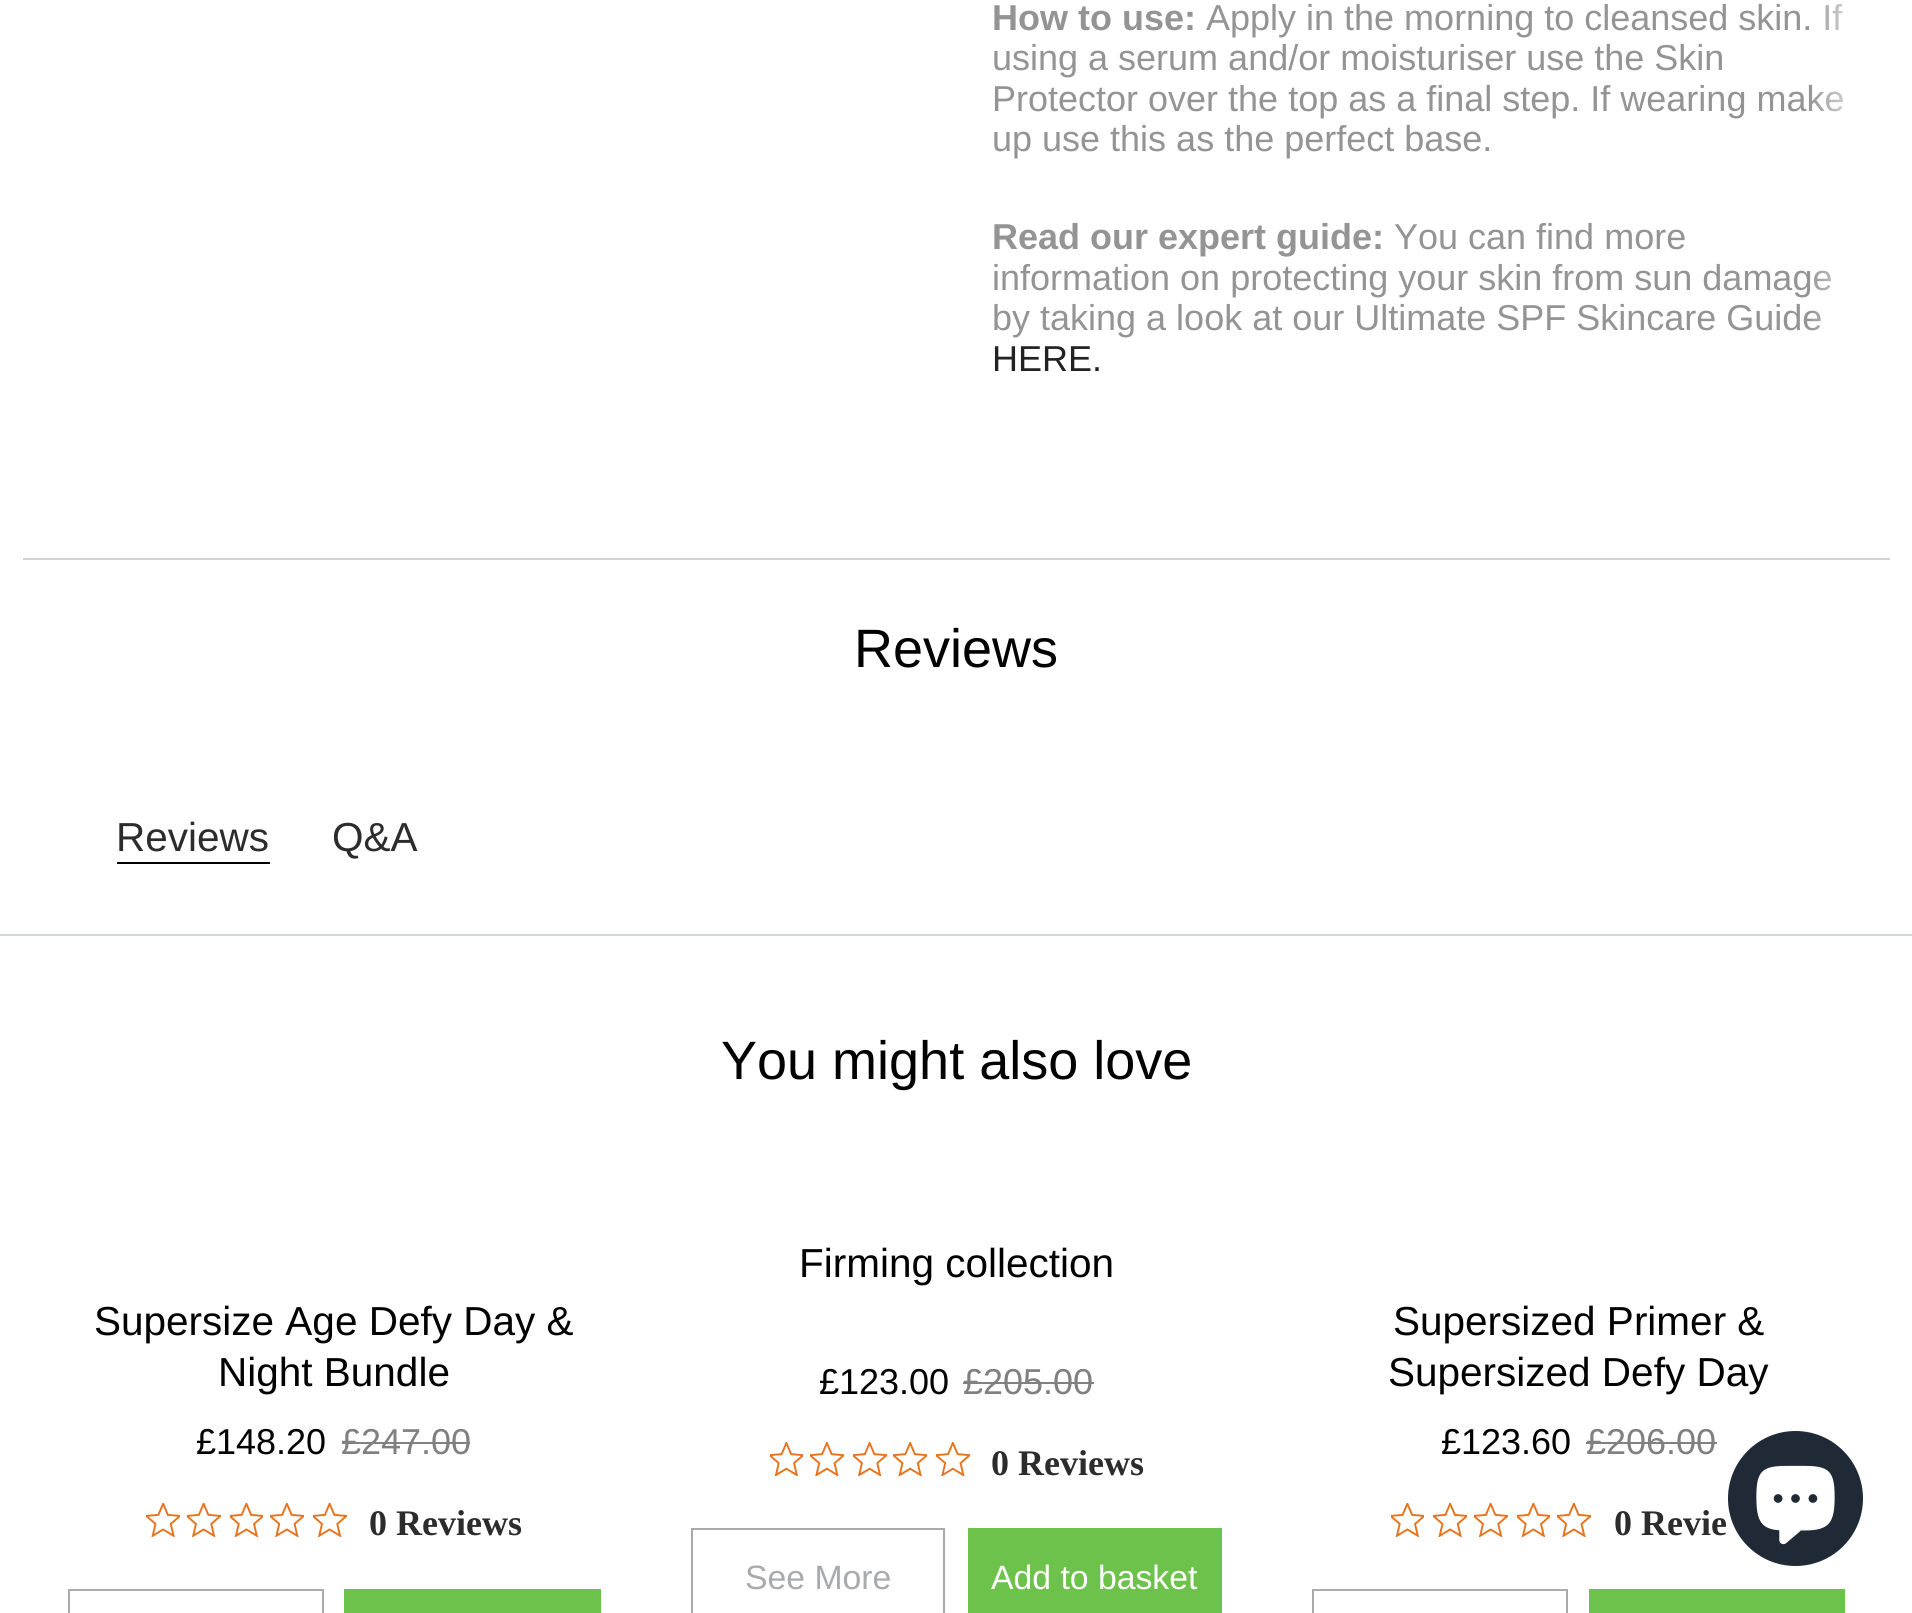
#include <cairo.h>
#include <math.h>
#include <stddef.h>

typedef struct { double x, y; const char *s; } line_t;

static void ink(cairo_t *ctx, unsigned color) {
    cairo_set_source_rgb(ctx, (color >> 16) / 255.0, (color >> 8 & 255) / 255.0, (color & 255) / 255.0);
}

static void paste(cairo_t *ctx, const char *path, double x, double y, double w, double h) {
    cairo_surface_t *image = cairo_image_surface_create_from_png(path);
    cairo_save(ctx);
    cairo_set_source_surface(ctx, image, x, y);
    cairo_rectangle(ctx, x, y, w, h);
    cairo_fill(ctx);
    cairo_restore(ctx);
    cairo_surface_destroy(image);
}

int main(void) {
    cairo_surface_t *surface = cairo_image_surface_create(CAIRO_FORMAT_RGB24, 1912, 1613);
    cairo_t *ctx = cairo_create(surface);
    cairo_font_options_t *options = cairo_font_options_create();
    cairo_font_options_set_hint_metrics(options, CAIRO_HINT_METRICS_OFF);
    cairo_font_options_set_hint_style(options, CAIRO_HINT_STYLE_NONE);
    cairo_set_font_options(ctx, options);
    cairo_set_miter_limit(ctx, 4);
    cairo_pattern_t *gradient;
    ink(ctx, 0xFFFFFF);
    cairo_paint(ctx);
    cairo_select_font_face(ctx, "Liberation Sans", CAIRO_FONT_SLANT_NORMAL, CAIRO_FONT_WEIGHT_BOLD);
    cairo_set_font_size(ctx, 36);
    ink(ctx, 0x949494);
    cairo_move_to(ctx, 992, 30);
    cairo_show_text(ctx, "How to use:");
    cairo_select_font_face(ctx, "Liberation Sans", CAIRO_FONT_SLANT_NORMAL, CAIRO_FONT_WEIGHT_NORMAL);
    {
        static const line_t items[] = {
            {1206, 30, "Apply in the morning to cleansed skin. If"},
            {992, 70, "using a serum and/or moisturiser use the Skin"},
            {992, 111, "Protector over the top as a final step. If wearing make"},
            {992, 151, "up use this as the perfect base."},
        };
        for (size_t i = 0; i < sizeof items / sizeof *items; i++) {
            cairo_move_to(ctx, items[i].x, items[i].y);
            cairo_show_text(ctx, items[i].s);
        }
    }
    cairo_select_font_face(ctx, "Liberation Sans", CAIRO_FONT_SLANT_NORMAL, CAIRO_FONT_WEIGHT_BOLD);
    cairo_move_to(ctx, 992, 249);
    cairo_show_text(ctx, "Read our expert guide:");
    cairo_select_font_face(ctx, "Liberation Sans", CAIRO_FONT_SLANT_NORMAL, CAIRO_FONT_WEIGHT_NORMAL);
    {
        static const line_t items[] = {
            {1394, 249, "You can find more"},
            {992, 290, "information on protecting your skin from sun damage"},
            {992, 330, "by taking a look at our Ultimate SPF Skincare Guide"},
        };
        for (size_t i = 0; i < sizeof items / sizeof *items; i++) {
            cairo_move_to(ctx, items[i].x, items[i].y);
            cairo_show_text(ctx, items[i].s);
        }
    }
    ink(ctx, 0x222222);
    cairo_move_to(ctx, 992, 371);
    cairo_show_text(ctx, "HERE.");
    gradient = cairo_pattern_create_linear(1809, -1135, 1877, -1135);
    cairo_pattern_add_color_stop_rgba(gradient, 0, 1, 1, 1, 0.01);
    cairo_pattern_add_color_stop_rgba(gradient, 1, 1, 1, 1, 1);
    cairo_set_source(ctx, gradient);
    cairo_pattern_destroy(gradient);
    cairo_rectangle(ctx, 1810, 4, 34, 326);
    cairo_fill(ctx);
    ink(ctx, 0xD3D3D3);
    cairo_rectangle(ctx, 23, 558, 1867, 2);
    cairo_fill(ctx);
    cairo_set_font_size(ctx, 54);
    ink(ctx, 0x010101);
    cairo_move_to(ctx, 854, 667);
    cairo_show_text(ctx, "Reviews");
    ink(ctx, 0x000000);
    cairo_rectangle(ctx, 117, 862, 153, 2);
    cairo_fill(ctx);
    cairo_set_font_size(ctx, 40.5);
    ink(ctx, 0x2C2C2C);
    cairo_move_to(ctx, 116, 851);
    cairo_show_text(ctx, "Reviews");
    cairo_move_to(ctx, 332, 851);
    cairo_show_text(ctx, "Q&A");
    ink(ctx, 0xD4D8DD);
    cairo_rectangle(ctx, 0, 934, 1912, 2);
    cairo_fill(ctx);
    cairo_set_font_size(ctx, 54);
    ink(ctx, 0x010101);
    cairo_move_to(ctx, 721, 1079);
    cairo_show_text(ctx, "You might also love");
    cairo_set_font_size(ctx, 40.5);
    cairo_move_to(ctx, 94, 1335);
    cairo_show_text(ctx, "Supersize Age Defy Day &");
    cairo_move_to(ctx, 218, 1386);
    cairo_show_text(ctx, "Night Bundle");
    cairo_set_font_size(ctx, 36);
    cairo_move_to(ctx, 196, 1454);
    cairo_show_text(ctx, "£148.20");
    ink(ctx, 0x808080);
    cairo_move_to(ctx, 341, 1454);
    cairo_show_text(ctx, "£247.00");
    cairo_rectangle(ctx, 342, 1442, 128, 2);
    cairo_fill(ctx);
    paste(ctx, "media/1.png", 146, 1503, 34, 34);
    paste(ctx, "media/2.png", 187, 1503, 34, 34);
    paste(ctx, "media/3.png", 230, 1503, 33, 34);
    paste(ctx, "media/4.png", 270, 1503, 34, 34);
    paste(ctx, "media/2.png", 313, 1503, 34, 34);
    cairo_select_font_face(ctx, "Liberation Serif", CAIRO_FONT_SLANT_NORMAL, CAIRO_FONT_WEIGHT_BOLD);
    ink(ctx, 0x2C2C2C);
    cairo_move_to(ctx, 369, 1535);
    cairo_show_text(ctx, "0 Reviews");
    cairo_rectangle(ctx, 69, 1590, 254, 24);
    ink(ctx, 0xA9AAAC);
    cairo_stroke(ctx);
    ink(ctx, 0x6CC24A);
    cairo_rectangle(ctx, 344, 1589, 257, 24);
    cairo_fill(ctx);
    cairo_select_font_face(ctx, "Liberation Sans", CAIRO_FONT_SLANT_NORMAL, CAIRO_FONT_WEIGHT_NORMAL);
    cairo_set_font_size(ctx, 40.5);
    ink(ctx, 0x010101);
    cairo_move_to(ctx, 799, 1277);
    cairo_show_text(ctx, "Firming collection");
    cairo_set_font_size(ctx, 36);
    cairo_move_to(ctx, 819, 1394);
    cairo_show_text(ctx, "£123.00");
    ink(ctx, 0x808080);
    cairo_move_to(ctx, 963, 1394);
    cairo_show_text(ctx, "£205.00");
    cairo_rectangle(ctx, 963, 1382, 131, 2);
    cairo_fill(ctx);
    paste(ctx, "media/5.png", 770, 1442, 33, 34);
    paste(ctx, "media/6.png", 810, 1442, 34, 34);
    paste(ctx, "media/7.png", 853, 1442, 34, 34);
    paste(ctx, "media/8.png", 893, 1442, 34, 34);
    paste(ctx, "media/6.png", 936, 1442, 34, 34);
    cairo_select_font_face(ctx, "Liberation Serif", CAIRO_FONT_SLANT_NORMAL, CAIRO_FONT_WEIGHT_BOLD);
    ink(ctx, 0x2C2C2C);
    cairo_move_to(ctx, 991, 1475);
    cairo_show_text(ctx, "0 Reviews");
    cairo_rectangle(ctx, 692, 1529, 252, 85);
    ink(ctx, 0xA9AAAC);
    cairo_stroke(ctx);
    cairo_select_font_face(ctx, "Liberation Sans", CAIRO_FONT_SLANT_NORMAL, CAIRO_FONT_WEIGHT_NORMAL);
    cairo_set_font_size(ctx, 33.75);
    cairo_move_to(ctx, 745, 1589);
    cairo_show_text(ctx, "See More");
    ink(ctx, 0x6CC24A);
    cairo_rectangle(ctx, 968, 1528, 254, 85);
    cairo_fill(ctx);
    ink(ctx, 0xFFFFFF);
    cairo_move_to(ctx, 991, 1589);
    cairo_show_text(ctx, "Add to basket");
    cairo_set_font_size(ctx, 40.5);
    ink(ctx, 0x010101);
    cairo_move_to(ctx, 1393, 1335);
    cairo_show_text(ctx, "Supersized Primer &");
    cairo_move_to(ctx, 1388, 1386);
    cairo_show_text(ctx, "Supersized Defy Day");
    cairo_set_font_size(ctx, 36);
    cairo_move_to(ctx, 1441, 1454);
    cairo_show_text(ctx, "£123.60");
    ink(ctx, 0x808080);
    cairo_move_to(ctx, 1586, 1454);
    cairo_show_text(ctx, "£206.00");
    cairo_rectangle(ctx, 1586, 1442, 131, 2);
    cairo_fill(ctx);
    paste(ctx, "media/3.png", 1391, 1503, 33, 34);
    paste(ctx, "media/1.png", 1433, 1503, 34, 34);
    paste(ctx, "media/2.png", 1474, 1503, 34, 34);
    paste(ctx, "media/3.png", 1517, 1503, 33, 34);
    paste(ctx, "media/4.png", 1557, 1503, 34, 34);
    cairo_select_font_face(ctx, "Liberation Serif", CAIRO_FONT_SLANT_NORMAL, CAIRO_FONT_WEIGHT_BOLD);
    ink(ctx, 0x2C2C2C);
    cairo_move_to(ctx, 1614, 1535);
    cairo_show_text(ctx, "0 Revie");
    cairo_rectangle(ctx, 1313, 1590, 254, 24);
    ink(ctx, 0xA9AAAC);
    cairo_stroke(ctx);
    ink(ctx, 0x6CC24A);
    cairo_rectangle(ctx, 1589, 1589, 256, 24);
    cairo_fill(ctx);
    ink(ctx, 0x202A36);
    cairo_arc(ctx, 1795.5, 1498.5, 67.5, 0, 2 * M_PI);
    cairo_fill(ctx);
    paste(ctx, "media/9.png", 1756, 1465, 79, 80);
    cairo_surface_write_to_png(surface, "image.png");
    cairo_font_options_destroy(options);
    cairo_destroy(ctx);
    cairo_surface_destroy(surface);
    return 0;
}
